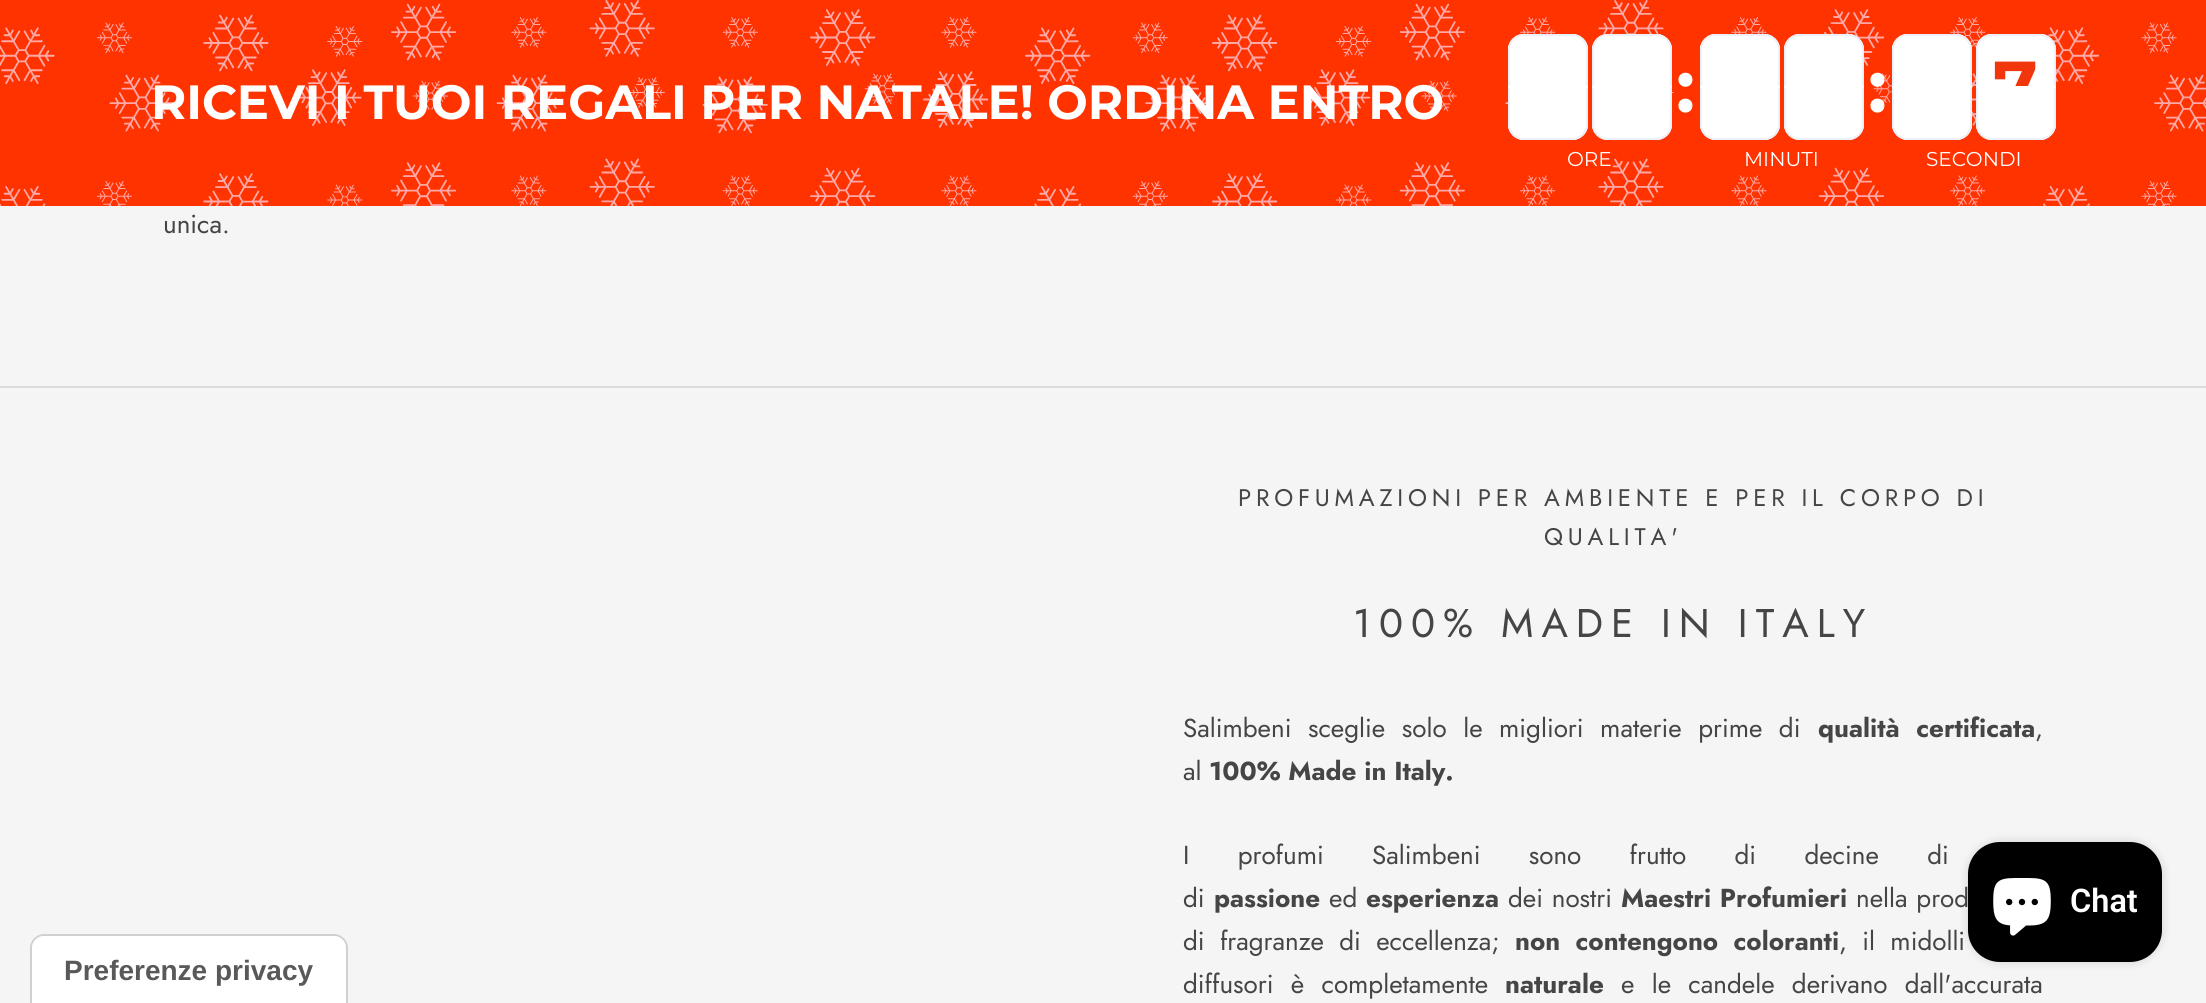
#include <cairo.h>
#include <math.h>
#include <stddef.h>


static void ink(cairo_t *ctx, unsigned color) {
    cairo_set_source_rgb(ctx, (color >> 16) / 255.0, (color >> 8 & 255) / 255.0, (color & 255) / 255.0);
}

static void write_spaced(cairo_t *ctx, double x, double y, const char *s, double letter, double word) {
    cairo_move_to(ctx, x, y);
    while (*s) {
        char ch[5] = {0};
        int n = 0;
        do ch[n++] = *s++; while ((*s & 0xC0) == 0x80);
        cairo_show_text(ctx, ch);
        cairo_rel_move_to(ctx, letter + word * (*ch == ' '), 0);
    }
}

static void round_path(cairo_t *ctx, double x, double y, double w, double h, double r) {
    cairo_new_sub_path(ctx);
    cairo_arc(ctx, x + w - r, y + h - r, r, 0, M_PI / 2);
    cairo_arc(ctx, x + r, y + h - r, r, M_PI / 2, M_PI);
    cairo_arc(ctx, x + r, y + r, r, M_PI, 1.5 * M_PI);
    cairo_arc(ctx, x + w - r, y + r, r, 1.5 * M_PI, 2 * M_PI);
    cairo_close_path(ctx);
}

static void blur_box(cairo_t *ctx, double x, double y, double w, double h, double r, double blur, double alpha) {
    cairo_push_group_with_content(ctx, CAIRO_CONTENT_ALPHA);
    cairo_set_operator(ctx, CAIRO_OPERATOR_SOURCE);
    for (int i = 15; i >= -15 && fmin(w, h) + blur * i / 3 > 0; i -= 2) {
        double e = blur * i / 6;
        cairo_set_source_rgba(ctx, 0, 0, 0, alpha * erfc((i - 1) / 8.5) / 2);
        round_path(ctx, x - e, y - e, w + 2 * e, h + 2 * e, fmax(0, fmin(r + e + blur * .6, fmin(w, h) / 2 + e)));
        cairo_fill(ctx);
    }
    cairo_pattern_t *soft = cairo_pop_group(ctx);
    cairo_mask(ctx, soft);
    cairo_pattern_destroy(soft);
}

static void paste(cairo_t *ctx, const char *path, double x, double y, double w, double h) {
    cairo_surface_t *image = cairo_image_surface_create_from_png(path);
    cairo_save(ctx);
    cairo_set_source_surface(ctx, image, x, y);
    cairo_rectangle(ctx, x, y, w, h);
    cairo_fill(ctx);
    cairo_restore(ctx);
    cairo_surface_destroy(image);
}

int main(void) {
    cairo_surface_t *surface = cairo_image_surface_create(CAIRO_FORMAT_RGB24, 2206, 1003);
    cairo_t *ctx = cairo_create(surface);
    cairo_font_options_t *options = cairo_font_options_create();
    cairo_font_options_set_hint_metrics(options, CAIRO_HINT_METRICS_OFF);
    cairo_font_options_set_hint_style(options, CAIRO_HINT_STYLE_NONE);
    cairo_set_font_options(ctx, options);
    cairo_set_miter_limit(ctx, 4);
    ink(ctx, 0xF5F5F5);
    cairo_paint(ctx);
    ink(ctx, 0xFF3300);
    cairo_rectangle(ctx, 0, 0, 2206, 206);
    cairo_fill(ctx);
    paste(ctx, "media/1.png", 0, 0, 2206, 206);
    cairo_select_font_face(ctx, "Montserrat", CAIRO_FONT_SLANT_NORMAL, CAIRO_FONT_WEIGHT_BOLD);
    cairo_set_font_size(ctx, 48);
    ink(ctx, 0xFFFFFF);
    cairo_move_to(ctx, 151, 119);
    cairo_show_text(ctx, "RICEVI I TUOI REGALI PER NATALE! ORDINA ENTRO");
    cairo_set_font_size(ctx, 72);
    cairo_move_to(ctx, 1676, 112);
    cairo_show_text(ctx, ":");
    cairo_move_to(ctx, 1868, 112);
    cairo_show_text(ctx, ":");
    round_path(ctx, 1892, 34, 80, 106, 16);
    cairo_fill(ctx);
    cairo_new_path(ctx);
    cairo_move_to(ctx, 1908, 34);
    cairo_line_to(ctx, 1956, 34);
    cairo_curve_to(ctx, 1965, 34, 1972, 41, 1972, 50);
    cairo_line_to(ctx, 1972, 86);
    cairo_line_to(ctx, 1892, 86);
    cairo_line_to(ctx, 1892, 50);
    cairo_curve_to(ctx, 1892, 41, 1899, 34, 1908, 34);
    cairo_close_path(ctx);
    cairo_fill(ctx);
    ink(ctx, 0xECF0F8);
    cairo_set_fill_rule(ctx, CAIRO_FILL_RULE_EVEN_ODD);
    cairo_new_path(ctx);
    cairo_move_to(ctx, 1908, 34);
    cairo_line_to(ctx, 1956, 34);
    cairo_curve_to(ctx, 1965, 34, 1972, 41, 1972, 50);
    cairo_line_to(ctx, 1972, 86);
    cairo_line_to(ctx, 1892, 86);
    cairo_line_to(ctx, 1892, 50);
    cairo_curve_to(ctx, 1892, 41, 1899, 34, 1908, 34);
    cairo_close_path(ctx);
    cairo_move_to(ctx, 1908, 36);
    cairo_line_to(ctx, 1956, 36);
    cairo_curve_to(ctx, 1964, 36, 1970, 42, 1970, 50);
    cairo_line_to(ctx, 1970, 86);
    cairo_line_to(ctx, 1894, 86);
    cairo_line_to(ctx, 1894, 50);
    cairo_curve_to(ctx, 1894, 42, 1900, 36, 1908, 36);
    cairo_close_path(ctx);
    cairo_fill(ctx);
    ink(ctx, 0xFFFFFF);
    cairo_new_path(ctx);
    cairo_move_to(ctx, 1892, 88);
    cairo_line_to(ctx, 1972, 88);
    cairo_line_to(ctx, 1972, 124);
    cairo_curve_to(ctx, 1972, 133, 1965, 140, 1956, 140);
    cairo_line_to(ctx, 1908, 140);
    cairo_curve_to(ctx, 1899, 140, 1892, 133, 1892, 124);
    cairo_close_path(ctx);
    cairo_fill(ctx);
    ink(ctx, 0xECF0F8);
    cairo_new_path(ctx);
    cairo_move_to(ctx, 1892, 88);
    cairo_line_to(ctx, 1972, 88);
    cairo_line_to(ctx, 1972, 124);
    cairo_curve_to(ctx, 1972, 133, 1965, 140, 1956, 140);
    cairo_line_to(ctx, 1908, 140);
    cairo_curve_to(ctx, 1899, 140, 1892, 133, 1892, 124);
    cairo_close_path(ctx);
    cairo_move_to(ctx, 1894, 88);
    cairo_line_to(ctx, 1970, 88);
    cairo_line_to(ctx, 1970, 124);
    cairo_curve_to(ctx, 1970, 132, 1964, 138, 1956, 138);
    cairo_line_to(ctx, 1908, 138);
    cairo_curve_to(ctx, 1900, 138, 1894, 132, 1894, 124);
    cairo_close_path(ctx);
    cairo_fill(ctx);
    ink(ctx, 0xFFFFFF);
    round_path(ctx, 1976, 34, 80, 106, 16);
    cairo_fill(ctx);
    cairo_new_path(ctx);
    cairo_move_to(ctx, 1992, 34);
    cairo_line_to(ctx, 2040, 34);
    cairo_curve_to(ctx, 2049, 34, 2056, 41, 2056, 50);
    cairo_line_to(ctx, 2056, 86);
    cairo_line_to(ctx, 1976, 86);
    cairo_line_to(ctx, 1976, 50);
    cairo_curve_to(ctx, 1976, 41, 1983, 34, 1992, 34);
    cairo_close_path(ctx);
    cairo_fill(ctx);
    ink(ctx, 0xECF0F8);
    cairo_new_path(ctx);
    cairo_move_to(ctx, 1992, 34);
    cairo_line_to(ctx, 2040, 34);
    cairo_curve_to(ctx, 2049, 34, 2056, 41, 2056, 50);
    cairo_line_to(ctx, 2056, 86);
    cairo_line_to(ctx, 1976, 86);
    cairo_line_to(ctx, 1976, 50);
    cairo_curve_to(ctx, 1976, 41, 1983, 34, 1992, 34);
    cairo_close_path(ctx);
    cairo_move_to(ctx, 1992, 36);
    cairo_line_to(ctx, 2040, 36);
    cairo_curve_to(ctx, 2048, 36, 2054, 42, 2054, 50);
    cairo_line_to(ctx, 2054, 86);
    cairo_line_to(ctx, 1978, 86);
    cairo_line_to(ctx, 1978, 50);
    cairo_curve_to(ctx, 1978, 42, 1984, 36, 1992, 36);
    cairo_close_path(ctx);
    cairo_fill(ctx);
    cairo_save(ctx);
    cairo_set_fill_rule(ctx, CAIRO_FILL_RULE_WINDING);
    cairo_new_path(ctx);
    cairo_move_to(ctx, 1992, 36);
    cairo_line_to(ctx, 2040, 36);
    cairo_curve_to(ctx, 2047.5, 36, 2054, 42.5, 2054, 50);
    cairo_line_to(ctx, 2054, 86);
    cairo_line_to(ctx, 1978, 86);
    cairo_line_to(ctx, 1978, 50);
    cairo_curve_to(ctx, 1978, 42.5, 1984.5, 36, 1992, 36);
    cairo_close_path(ctx);
    cairo_clip(ctx);
    ink(ctx, 0xF1360C);
    cairo_move_to(ctx, 1993, 112);
    cairo_show_text(ctx, "7");
    cairo_restore(ctx);
    ink(ctx, 0xFFFFFF);
    cairo_set_fill_rule(ctx, CAIRO_FILL_RULE_WINDING);
    cairo_new_path(ctx);
    cairo_move_to(ctx, 1992, 140);
    cairo_line_to(ctx, 2040, 140);
    cairo_curve_to(ctx, 2048, 140, 2056, 133, 2056, 124);
    cairo_line_to(ctx, 2056, 88);
    cairo_line_to(ctx, 1976, 88);
    cairo_line_to(ctx, 1976, 124);
    cairo_curve_to(ctx, 1976, 133, 1983, 140, 1992, 140);
    cairo_close_path(ctx);
    cairo_fill(ctx);
    ink(ctx, 0xECF0F8);
    cairo_set_fill_rule(ctx, CAIRO_FILL_RULE_EVEN_ODD);
    cairo_new_path(ctx);
    cairo_move_to(ctx, 1992, 140);
    cairo_line_to(ctx, 2040, 140);
    cairo_curve_to(ctx, 2048, 140, 2056, 133, 2056, 124);
    cairo_line_to(ctx, 2056, 88);
    cairo_line_to(ctx, 1976, 88);
    cairo_line_to(ctx, 1976, 124);
    cairo_curve_to(ctx, 1976, 133, 1983, 140, 1992, 140);
    cairo_close_path(ctx);
    cairo_move_to(ctx, 1992, 138);
    cairo_line_to(ctx, 2040, 138);
    cairo_curve_to(ctx, 2047, 138, 2054, 132, 2054, 124);
    cairo_line_to(ctx, 2054, 88);
    cairo_line_to(ctx, 1978, 88);
    cairo_line_to(ctx, 1978, 124);
    cairo_curve_to(ctx, 1978, 132, 1984, 138, 1992, 138);
    cairo_close_path(ctx);
    cairo_fill(ctx);
    cairo_select_font_face(ctx, "Montserrat", CAIRO_FONT_SLANT_NORMAL, CAIRO_FONT_WEIGHT_NORMAL);
    cairo_set_font_size(ctx, 20);
    ink(ctx, 0xFFFFFF);
    cairo_move_to(ctx, 1926, 166);
    cairo_show_text(ctx, "SECONDI");
    round_path(ctx, 1508, 34, 80, 106, 16);
    cairo_fill(ctx);
    cairo_new_path(ctx);
    cairo_move_to(ctx, 1524, 34);
    cairo_line_to(ctx, 1572, 34);
    cairo_curve_to(ctx, 1581, 34, 1588, 41, 1588, 50);
    cairo_line_to(ctx, 1588, 86);
    cairo_line_to(ctx, 1508, 86);
    cairo_line_to(ctx, 1508, 50);
    cairo_curve_to(ctx, 1508, 41, 1515, 34, 1524, 34);
    cairo_close_path(ctx);
    cairo_fill(ctx);
    ink(ctx, 0xECF0F8);
    cairo_new_path(ctx);
    cairo_move_to(ctx, 1524, 34);
    cairo_line_to(ctx, 1572, 34);
    cairo_curve_to(ctx, 1581, 34, 1588, 41, 1588, 50);
    cairo_line_to(ctx, 1588, 86);
    cairo_line_to(ctx, 1508, 86);
    cairo_line_to(ctx, 1508, 50);
    cairo_curve_to(ctx, 1508, 41, 1515, 34, 1524, 34);
    cairo_close_path(ctx);
    cairo_move_to(ctx, 1524, 36);
    cairo_line_to(ctx, 1572, 36);
    cairo_curve_to(ctx, 1580, 36, 1586, 42, 1586, 50);
    cairo_line_to(ctx, 1586, 86);
    cairo_line_to(ctx, 1510, 86);
    cairo_line_to(ctx, 1510, 50);
    cairo_curve_to(ctx, 1510, 42, 1516, 36, 1524, 36);
    cairo_close_path(ctx);
    cairo_fill(ctx);
    ink(ctx, 0xFFFFFF);
    cairo_new_path(ctx);
    cairo_move_to(ctx, 1508, 88);
    cairo_line_to(ctx, 1588, 88);
    cairo_line_to(ctx, 1588, 124);
    cairo_curve_to(ctx, 1588, 133, 1581, 140, 1572, 140);
    cairo_line_to(ctx, 1524, 140);
    cairo_curve_to(ctx, 1515, 140, 1508, 133, 1508, 124);
    cairo_close_path(ctx);
    cairo_fill(ctx);
    ink(ctx, 0xECF0F8);
    cairo_new_path(ctx);
    cairo_move_to(ctx, 1508, 88);
    cairo_line_to(ctx, 1588, 88);
    cairo_line_to(ctx, 1588, 124);
    cairo_curve_to(ctx, 1588, 133, 1581, 140, 1572, 140);
    cairo_line_to(ctx, 1524, 140);
    cairo_curve_to(ctx, 1515, 140, 1508, 133, 1508, 124);
    cairo_close_path(ctx);
    cairo_move_to(ctx, 1510, 88);
    cairo_line_to(ctx, 1586, 88);
    cairo_line_to(ctx, 1586, 124);
    cairo_curve_to(ctx, 1586, 132, 1580, 138, 1572, 138);
    cairo_line_to(ctx, 1524, 138);
    cairo_curve_to(ctx, 1516, 138, 1510, 132, 1510, 124);
    cairo_close_path(ctx);
    cairo_fill(ctx);
    ink(ctx, 0xFFFFFF);
    round_path(ctx, 1592, 34, 80, 106, 16);
    cairo_fill(ctx);
    cairo_new_path(ctx);
    cairo_move_to(ctx, 1608, 34);
    cairo_line_to(ctx, 1656, 34);
    cairo_curve_to(ctx, 1665, 34, 1672, 41, 1672, 50);
    cairo_line_to(ctx, 1672, 86);
    cairo_line_to(ctx, 1592, 86);
    cairo_line_to(ctx, 1592, 50);
    cairo_curve_to(ctx, 1592, 41, 1599, 34, 1608, 34);
    cairo_close_path(ctx);
    cairo_fill(ctx);
    ink(ctx, 0xECF0F8);
    cairo_new_path(ctx);
    cairo_move_to(ctx, 1608, 34);
    cairo_line_to(ctx, 1656, 34);
    cairo_curve_to(ctx, 1665, 34, 1672, 41, 1672, 50);
    cairo_line_to(ctx, 1672, 86);
    cairo_line_to(ctx, 1592, 86);
    cairo_line_to(ctx, 1592, 50);
    cairo_curve_to(ctx, 1592, 41, 1599, 34, 1608, 34);
    cairo_close_path(ctx);
    cairo_move_to(ctx, 1608, 36);
    cairo_line_to(ctx, 1656, 36);
    cairo_curve_to(ctx, 1664, 36, 1670, 42, 1670, 50);
    cairo_line_to(ctx, 1670, 86);
    cairo_line_to(ctx, 1594, 86);
    cairo_line_to(ctx, 1594, 50);
    cairo_curve_to(ctx, 1594, 42, 1600, 36, 1608, 36);
    cairo_close_path(ctx);
    cairo_fill(ctx);
    ink(ctx, 0xFFFFFF);
    cairo_new_path(ctx);
    cairo_move_to(ctx, 1592, 88);
    cairo_line_to(ctx, 1672, 88);
    cairo_line_to(ctx, 1672, 124);
    cairo_curve_to(ctx, 1672, 133, 1665, 140, 1656, 140);
    cairo_line_to(ctx, 1608, 140);
    cairo_curve_to(ctx, 1599, 140, 1592, 133, 1592, 124);
    cairo_close_path(ctx);
    cairo_fill(ctx);
    ink(ctx, 0xECF0F8);
    cairo_new_path(ctx);
    cairo_move_to(ctx, 1592, 88);
    cairo_line_to(ctx, 1672, 88);
    cairo_line_to(ctx, 1672, 124);
    cairo_curve_to(ctx, 1672, 133, 1665, 140, 1656, 140);
    cairo_line_to(ctx, 1608, 140);
    cairo_curve_to(ctx, 1599, 140, 1592, 133, 1592, 124);
    cairo_close_path(ctx);
    cairo_move_to(ctx, 1594, 88);
    cairo_line_to(ctx, 1670, 88);
    cairo_line_to(ctx, 1670, 124);
    cairo_curve_to(ctx, 1670, 132, 1664, 138, 1656, 138);
    cairo_line_to(ctx, 1608, 138);
    cairo_curve_to(ctx, 1600, 138, 1594, 132, 1594, 124);
    cairo_close_path(ctx);
    cairo_fill(ctx);
    ink(ctx, 0xFFFFFF);
    cairo_move_to(ctx, 1567, 166);
    cairo_show_text(ctx, "ORE");
    round_path(ctx, 1700, 34, 80, 106, 16);
    cairo_fill(ctx);
    cairo_new_path(ctx);
    cairo_move_to(ctx, 1716, 34);
    cairo_line_to(ctx, 1764, 34);
    cairo_curve_to(ctx, 1773, 34, 1780, 41, 1780, 50);
    cairo_line_to(ctx, 1780, 86);
    cairo_line_to(ctx, 1700, 86);
    cairo_line_to(ctx, 1700, 50);
    cairo_curve_to(ctx, 1700, 41, 1707, 34, 1716, 34);
    cairo_close_path(ctx);
    cairo_fill(ctx);
    ink(ctx, 0xECF0F8);
    cairo_new_path(ctx);
    cairo_move_to(ctx, 1716, 34);
    cairo_line_to(ctx, 1764, 34);
    cairo_curve_to(ctx, 1773, 34, 1780, 41, 1780, 50);
    cairo_line_to(ctx, 1780, 86);
    cairo_line_to(ctx, 1700, 86);
    cairo_line_to(ctx, 1700, 50);
    cairo_curve_to(ctx, 1700, 41, 1707, 34, 1716, 34);
    cairo_close_path(ctx);
    cairo_move_to(ctx, 1716, 36);
    cairo_line_to(ctx, 1764, 36);
    cairo_curve_to(ctx, 1772, 36, 1778, 42, 1778, 50);
    cairo_line_to(ctx, 1778, 86);
    cairo_line_to(ctx, 1702, 86);
    cairo_line_to(ctx, 1702, 50);
    cairo_curve_to(ctx, 1702, 42, 1708, 36, 1716, 36);
    cairo_close_path(ctx);
    cairo_fill(ctx);
    ink(ctx, 0xFFFFFF);
    cairo_new_path(ctx);
    cairo_move_to(ctx, 1700, 88);
    cairo_line_to(ctx, 1780, 88);
    cairo_line_to(ctx, 1780, 124);
    cairo_curve_to(ctx, 1780, 133, 1773, 140, 1764, 140);
    cairo_line_to(ctx, 1716, 140);
    cairo_curve_to(ctx, 1707, 140, 1700, 133, 1700, 124);
    cairo_close_path(ctx);
    cairo_fill(ctx);
    ink(ctx, 0xECF0F8);
    cairo_new_path(ctx);
    cairo_move_to(ctx, 1700, 88);
    cairo_line_to(ctx, 1780, 88);
    cairo_line_to(ctx, 1780, 124);
    cairo_curve_to(ctx, 1780, 133, 1773, 140, 1764, 140);
    cairo_line_to(ctx, 1716, 140);
    cairo_curve_to(ctx, 1707, 140, 1700, 133, 1700, 124);
    cairo_close_path(ctx);
    cairo_move_to(ctx, 1702, 88);
    cairo_line_to(ctx, 1778, 88);
    cairo_line_to(ctx, 1778, 124);
    cairo_curve_to(ctx, 1778, 132, 1772, 138, 1764, 138);
    cairo_line_to(ctx, 1716, 138);
    cairo_curve_to(ctx, 1708, 138, 1702, 132, 1702, 124);
    cairo_close_path(ctx);
    cairo_fill(ctx);
    ink(ctx, 0xFFFFFF);
    round_path(ctx, 1784, 34, 80, 106, 16);
    cairo_fill(ctx);
    cairo_new_path(ctx);
    cairo_move_to(ctx, 1800, 34);
    cairo_line_to(ctx, 1848, 34);
    cairo_curve_to(ctx, 1857, 34, 1864, 41, 1864, 50);
    cairo_line_to(ctx, 1864, 86);
    cairo_line_to(ctx, 1784, 86);
    cairo_line_to(ctx, 1784, 50);
    cairo_curve_to(ctx, 1784, 41, 1791, 34, 1800, 34);
    cairo_close_path(ctx);
    cairo_fill(ctx);
    ink(ctx, 0xECF0F8);
    cairo_new_path(ctx);
    cairo_move_to(ctx, 1800, 34);
    cairo_line_to(ctx, 1848, 34);
    cairo_curve_to(ctx, 1857, 34, 1864, 41, 1864, 50);
    cairo_line_to(ctx, 1864, 86);
    cairo_line_to(ctx, 1784, 86);
    cairo_line_to(ctx, 1784, 50);
    cairo_curve_to(ctx, 1784, 41, 1791, 34, 1800, 34);
    cairo_close_path(ctx);
    cairo_move_to(ctx, 1800, 36);
    cairo_line_to(ctx, 1848, 36);
    cairo_curve_to(ctx, 1856, 36, 1862, 42, 1862, 50);
    cairo_line_to(ctx, 1862, 86);
    cairo_line_to(ctx, 1786, 86);
    cairo_line_to(ctx, 1786, 50);
    cairo_curve_to(ctx, 1786, 42, 1792, 36, 1800, 36);
    cairo_close_path(ctx);
    cairo_fill(ctx);
    ink(ctx, 0xFFFFFF);
    cairo_new_path(ctx);
    cairo_move_to(ctx, 1784, 88);
    cairo_line_to(ctx, 1864, 88);
    cairo_line_to(ctx, 1864, 124);
    cairo_curve_to(ctx, 1864, 133, 1857, 140, 1848, 140);
    cairo_line_to(ctx, 1800, 140);
    cairo_curve_to(ctx, 1791, 140, 1784, 133, 1784, 124);
    cairo_close_path(ctx);
    cairo_fill(ctx);
    ink(ctx, 0xECF0F8);
    cairo_new_path(ctx);
    cairo_move_to(ctx, 1784, 88);
    cairo_line_to(ctx, 1864, 88);
    cairo_line_to(ctx, 1864, 124);
    cairo_curve_to(ctx, 1864, 133, 1857, 140, 1848, 140);
    cairo_line_to(ctx, 1800, 140);
    cairo_curve_to(ctx, 1791, 140, 1784, 133, 1784, 124);
    cairo_close_path(ctx);
    cairo_move_to(ctx, 1786, 88);
    cairo_line_to(ctx, 1862, 88);
    cairo_line_to(ctx, 1862, 124);
    cairo_curve_to(ctx, 1862, 132, 1856, 138, 1848, 138);
    cairo_line_to(ctx, 1800, 138);
    cairo_curve_to(ctx, 1792, 138, 1786, 132, 1786, 124);
    cairo_close_path(ctx);
    cairo_fill(ctx);
    ink(ctx, 0xFFFFFF);
    cairo_move_to(ctx, 1744, 166);
    cairo_show_text(ctx, "MINUTI");
    cairo_select_font_face(ctx, "Jost", CAIRO_FONT_SLANT_NORMAL, CAIRO_FONT_WEIGHT_NORMAL);
    cairo_set_font_size(ctx, 26);
    ink(ctx, 0x454545);
    cairo_move_to(ctx, 163, 233);
    cairo_show_text(ctx, "unica.");
    ink(ctx, 0xDBDBDB);
    cairo_rectangle(ctx, 0, 386, 2206, 2);
    cairo_fill(ctx);
    cairo_set_font_size(ctx, 24);
    ink(ctx, 0x454545);
    write_spaced(ctx, 1238, 506, "PROFUMAZIONI PER AMBIENTE E PER IL CORPO DI", 4.8, 0);
    write_spaced(ctx, 1544, 545, "QUALITA'", 4.8, 0);
    cairo_set_font_size(ctx, 40);
    write_spaced(ctx, 1353, 637, "100% MADE IN ITALY", 8, 0);
    cairo_set_font_size(ctx, 26);
    write_spaced(ctx, 1183, 737, "Salimbeni sceglie solo le migliori materie prime di", 0, 8.75);
    cairo_select_font_face(ctx, "Jost", CAIRO_FONT_SLANT_NORMAL, CAIRO_FONT_WEIGHT_BOLD);
    write_spaced(ctx, 1818, 737, "qualità certificata", 0, 8.75);
    cairo_select_font_face(ctx, "Jost", CAIRO_FONT_SLANT_NORMAL, CAIRO_FONT_WEIGHT_NORMAL);
    cairo_move_to(ctx, 2035, 737);
    cairo_show_text(ctx, ",");
    cairo_move_to(ctx, 1183, 780);
    cairo_show_text(ctx, "al");
    cairo_select_font_face(ctx, "Jost", CAIRO_FONT_SLANT_NORMAL, CAIRO_FONT_WEIGHT_BOLD);
    cairo_move_to(ctx, 1209, 780);
    cairo_show_text(ctx, "100% Made in Italy.");
    cairo_select_font_face(ctx, "Jost", CAIRO_FONT_SLANT_NORMAL, CAIRO_FONT_WEIGHT_NORMAL);
    write_spaced(ctx, 1183, 864, "I profumi Salimbeni sono frutto di decine di", 0, 40.5);
    cairo_move_to(ctx, 1183, 907);
    cairo_show_text(ctx, "di");
    cairo_select_font_face(ctx, "Jost", CAIRO_FONT_SLANT_NORMAL, CAIRO_FONT_WEIGHT_BOLD);
    cairo_move_to(ctx, 1214, 907);
    cairo_show_text(ctx, "passione");
    cairo_select_font_face(ctx, "Jost", CAIRO_FONT_SLANT_NORMAL, CAIRO_FONT_WEIGHT_NORMAL);
    cairo_move_to(ctx, 1329, 907);
    cairo_show_text(ctx, "ed");
    cairo_select_font_face(ctx, "Jost", CAIRO_FONT_SLANT_NORMAL, CAIRO_FONT_WEIGHT_BOLD);
    cairo_move_to(ctx, 1366, 907);
    cairo_show_text(ctx, "esperienza");
    cairo_select_font_face(ctx, "Jost", CAIRO_FONT_SLANT_NORMAL, CAIRO_FONT_WEIGHT_NORMAL);
    write_spaced(ctx, 1508, 907, "dei nostri", 0, 1);
    cairo_select_font_face(ctx, "Jost", CAIRO_FONT_SLANT_NORMAL, CAIRO_FONT_WEIGHT_BOLD);
    write_spaced(ctx, 1621, 907, "Maestri Profumieri", 0, 1);
    cairo_select_font_face(ctx, "Jost", CAIRO_FONT_SLANT_NORMAL, CAIRO_FONT_WEIGHT_NORMAL);
    write_spaced(ctx, 1856, 907, "nella prod", 0, 1);
    write_spaced(ctx, 1183, 950, "di fragranze di eccellenza;", 0, 7.5);
    cairo_select_font_face(ctx, "Jost", CAIRO_FONT_SLANT_NORMAL, CAIRO_FONT_WEIGHT_BOLD);
    write_spaced(ctx, 1515, 950, "non contengono coloranti", 0, 7.5);
    cairo_select_font_face(ctx, "Jost", CAIRO_FONT_SLANT_NORMAL, CAIRO_FONT_WEIGHT_NORMAL);
    write_spaced(ctx, 1839, 950, ", il midolli", 0, 7.5);
    write_spaced(ctx, 1183, 993, "diffusori è completamente", 0, 9.5);
    cairo_select_font_face(ctx, "Jost", CAIRO_FONT_SLANT_NORMAL, CAIRO_FONT_WEIGHT_BOLD);
    cairo_move_to(ctx, 1505, 993);
    cairo_show_text(ctx, "naturale");
    cairo_select_font_face(ctx, "Jost", CAIRO_FONT_SLANT_NORMAL, CAIRO_FONT_WEIGHT_NORMAL);
    write_spaced(ctx, 1621, 993, "e le candele derivano dall'accurata", 0, 9.5);
    ink(ctx, 0x000000);
    blur_box(ctx, 1968, 842, 194, 120, 32, 5, 0.15);
    ink(ctx, 0x000000);
    round_path(ctx, 1968, 842, 194, 120, 32);
    cairo_fill(ctx);
    paste(ctx, "media/2.png", 1993, 878, 58, 58);
    cairo_select_font_face(ctx, "Roboto SemiBold", CAIRO_FONT_SLANT_NORMAL, CAIRO_FONT_WEIGHT_NORMAL);
    cairo_set_font_size(ctx, 32.5);
    ink(ctx, 0xFFFFFF);
    cairo_move_to(ctx, 2070, 912);
    cairo_show_text(ctx, "Chat");
    cairo_new_path(ctx);
    cairo_move_to(ctx, 44, 935);
    cairo_line_to(ctx, 334, 935);
    cairo_curve_to(ctx, 341, 935, 347, 941, 347, 948);
    cairo_line_to(ctx, 347, 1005);
    cairo_line_to(ctx, 31, 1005);
    cairo_line_to(ctx, 31, 948);
    cairo_curve_to(ctx, 31, 941, 37, 935, 44, 935);
    cairo_close_path(ctx);
    ink(ctx, 0xD0D0D0);
    cairo_stroke(ctx);
    ink(ctx, 0xFFFFFF);
    cairo_new_path(ctx);
    cairo_move_to(ctx, 44, 936);
    cairo_line_to(ctx, 334, 936);
    cairo_curve_to(ctx, 340.5, 936, 346, 941.5, 346, 948);
    cairo_line_to(ctx, 346, 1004);
    cairo_line_to(ctx, 32, 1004);
    cairo_line_to(ctx, 32, 948);
    cairo_curve_to(ctx, 32, 941.5, 37.5, 936, 44, 936);
    cairo_close_path(ctx);
    cairo_fill(ctx);
    cairo_select_font_face(ctx, "Liberation Sans", CAIRO_FONT_SLANT_NORMAL, CAIRO_FONT_WEIGHT_BOLD);
    cairo_set_font_size(ctx, 28);
    ink(ctx, 0x595959);
    cairo_move_to(ctx, 64, 980);
    cairo_show_text(ctx, "Preferenze privacy");
    cairo_surface_write_to_png(surface, "image.png");
    cairo_font_options_destroy(options);
    cairo_destroy(ctx);
    cairo_surface_destroy(surface);
    return 0;
}
